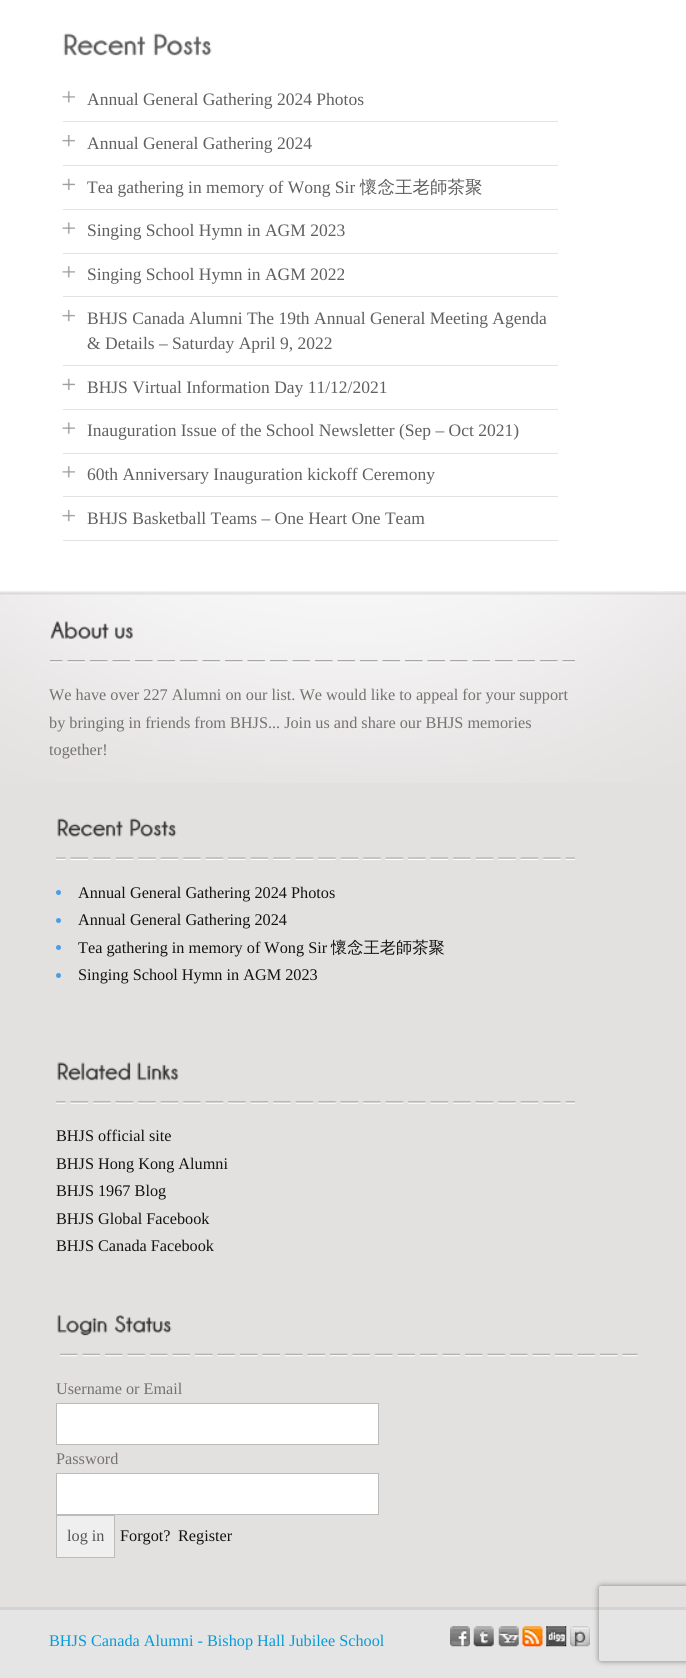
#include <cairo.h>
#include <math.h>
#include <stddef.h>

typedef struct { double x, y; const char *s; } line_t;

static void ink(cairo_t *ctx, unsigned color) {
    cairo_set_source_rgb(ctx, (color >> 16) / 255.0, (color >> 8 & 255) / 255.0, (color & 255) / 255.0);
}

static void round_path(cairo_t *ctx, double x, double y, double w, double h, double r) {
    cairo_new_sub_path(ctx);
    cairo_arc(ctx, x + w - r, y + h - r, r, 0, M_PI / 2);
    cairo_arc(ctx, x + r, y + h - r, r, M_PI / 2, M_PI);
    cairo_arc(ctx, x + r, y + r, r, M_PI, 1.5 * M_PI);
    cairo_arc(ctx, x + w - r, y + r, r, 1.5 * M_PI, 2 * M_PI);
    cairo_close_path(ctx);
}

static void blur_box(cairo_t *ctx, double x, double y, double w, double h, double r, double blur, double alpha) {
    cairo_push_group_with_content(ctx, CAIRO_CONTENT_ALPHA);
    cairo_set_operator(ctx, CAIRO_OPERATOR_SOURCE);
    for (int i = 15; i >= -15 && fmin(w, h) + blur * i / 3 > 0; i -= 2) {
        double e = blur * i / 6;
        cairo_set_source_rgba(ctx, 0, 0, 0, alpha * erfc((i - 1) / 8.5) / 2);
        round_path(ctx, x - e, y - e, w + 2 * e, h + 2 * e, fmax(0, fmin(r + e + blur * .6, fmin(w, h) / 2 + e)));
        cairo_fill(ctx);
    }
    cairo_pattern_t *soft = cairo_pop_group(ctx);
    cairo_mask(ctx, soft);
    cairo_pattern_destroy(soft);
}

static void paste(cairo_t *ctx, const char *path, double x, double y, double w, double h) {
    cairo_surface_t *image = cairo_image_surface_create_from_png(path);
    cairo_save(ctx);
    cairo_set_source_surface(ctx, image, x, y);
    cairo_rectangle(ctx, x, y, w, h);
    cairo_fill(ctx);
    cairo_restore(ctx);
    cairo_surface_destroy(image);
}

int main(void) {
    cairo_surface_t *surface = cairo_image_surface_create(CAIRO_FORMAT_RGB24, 686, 1678);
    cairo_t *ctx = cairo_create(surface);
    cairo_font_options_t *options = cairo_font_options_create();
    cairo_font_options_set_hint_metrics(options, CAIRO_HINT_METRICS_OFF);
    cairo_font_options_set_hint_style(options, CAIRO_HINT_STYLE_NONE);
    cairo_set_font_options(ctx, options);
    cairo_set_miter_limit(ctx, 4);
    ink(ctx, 0xFFFFFF);
    cairo_paint(ctx);
    paste(ctx, "media/1.png", 63, 33, 83, 23);
    paste(ctx, "media/2.png", 153, 33, 59, 23);
    paste(ctx, "media/3.png", 62, 91, 13, 12);
    ink(ctx, 0xE3E2E2);
    cairo_rectangle(ctx, 63, 121, 495, 1);
    cairo_fill(ctx);
    cairo_select_font_face(ctx, "Liberation Serif", CAIRO_FONT_SLANT_NORMAL, CAIRO_FONT_WEIGHT_NORMAL);
    cairo_set_font_size(ctx, 17.5);
    ink(ctx, 0x615F5F);
    cairo_move_to(ctx, 87, 105);
    cairo_show_text(ctx, "Annual General Gathering 2024 Photos");
    paste(ctx, "media/4.png", 62, 135, 13, 12);
    ink(ctx, 0xE3E2E2);
    cairo_rectangle(ctx, 63, 165, 495, 1);
    cairo_fill(ctx);
    ink(ctx, 0x615F5F);
    cairo_move_to(ctx, 87, 149);
    cairo_show_text(ctx, "Annual General Gathering 2024");
    paste(ctx, "media/5.png", 62, 178, 13, 12);
    ink(ctx, 0xE3E2E2);
    cairo_rectangle(ctx, 63, 209, 495, 1);
    cairo_fill(ctx);
    ink(ctx, 0x615F5F);
    cairo_move_to(ctx, 87, 193);
    cairo_show_text(ctx, "Tea gathering in memory of Wong Sir");
    cairo_select_font_face(ctx, "WenQuanYi Zen Hei Medium", CAIRO_FONT_SLANT_NORMAL, CAIRO_FONT_WEIGHT_NORMAL);
    cairo_move_to(ctx, 360, 193);
    cairo_show_text(ctx, "懷念王老師茶聚");
    paste(ctx, "media/6.png", 62, 222, 13, 12);
    ink(ctx, 0xE3E2E2);
    cairo_rectangle(ctx, 63, 253, 495, 1);
    cairo_fill(ctx);
    cairo_select_font_face(ctx, "Liberation Serif", CAIRO_FONT_SLANT_NORMAL, CAIRO_FONT_WEIGHT_NORMAL);
    ink(ctx, 0x615F5F);
    cairo_move_to(ctx, 87, 236);
    cairo_show_text(ctx, "Singing School Hymn in AGM 2023");
    paste(ctx, "media/3.png", 62, 266, 13, 12);
    ink(ctx, 0xE3E2E2);
    cairo_rectangle(ctx, 63, 296, 495, 1);
    cairo_fill(ctx);
    ink(ctx, 0x615F5F);
    cairo_move_to(ctx, 87, 280);
    cairo_show_text(ctx, "Singing School Hymn in AGM 2022");
    paste(ctx, "media/4.png", 62, 310, 13, 12);
    ink(ctx, 0xE3E2E2);
    cairo_rectangle(ctx, 63, 365, 495, 1);
    cairo_fill(ctx);
    ink(ctx, 0x615F5F);
    cairo_move_to(ctx, 87, 324);
    cairo_show_text(ctx, "BHJS Canada Alumni The 19th Annual General Meeting Agenda");
    cairo_move_to(ctx, 87, 349);
    cairo_show_text(ctx, "& Details – Saturday April 9, 2022");
    paste(ctx, "media/5.png", 62, 378, 13, 12);
    ink(ctx, 0xE3E2E2);
    cairo_rectangle(ctx, 63, 409, 495, 1);
    cairo_fill(ctx);
    ink(ctx, 0x615F5F);
    cairo_move_to(ctx, 87, 393);
    cairo_show_text(ctx, "BHJS Virtual Information Day 11/12/2021");
    paste(ctx, "media/7.png", 62, 422, 13, 12);
    ink(ctx, 0xE3E2E2);
    cairo_rectangle(ctx, 63, 453, 495, 1);
    cairo_fill(ctx);
    ink(ctx, 0x615F5F);
    cairo_move_to(ctx, 87, 436);
    cairo_show_text(ctx, "Inauguration Issue of the School Newsletter (Sep – Oct 2021)");
    paste(ctx, "media/3.png", 62, 466, 13, 12);
    ink(ctx, 0xE3E2E2);
    cairo_rectangle(ctx, 63, 496, 495, 1);
    cairo_fill(ctx);
    ink(ctx, 0x615F5F);
    cairo_move_to(ctx, 87, 480);
    cairo_show_text(ctx, "60th Anniversary Inauguration kickoff Ceremony");
    paste(ctx, "media/4.png", 62, 510, 13, 12);
    ink(ctx, 0xE3E2E2);
    cairo_rectangle(ctx, 63, 540, 495, 1);
    cairo_fill(ctx);
    ink(ctx, 0x615F5F);
    cairo_move_to(ctx, 87, 524);
    cairo_show_text(ctx, "BHJS Basketball Teams – One Heart One Team");
    ink(ctx, 0xE3E0E0);
    cairo_rectangle(ctx, 0, 591, 686, 1016);
    cairo_fill(ctx);
    paste(ctx, "media/8.png", 0, 591, 686, 192);
    paste(ctx, "media/9.png", 0, 591, 686, 4);
    paste(ctx, "media/10.png", 50, 660, 525, 3);
    paste(ctx, "media/11.png", 50, 621, 59, 18);
    paste(ctx, "media/12.png", 114, 627, 19, 12);
    cairo_set_font_size(ctx, 16.25);
    ink(ctx, 0x74726F);
    {
        static const line_t items[] = {
            {49, 700, "We have over 227 Alumni on our list. We would like to appeal for your support"},
            {49, 728, "by bringing in friends from BHJS... Join us and share our BHJS memories"},
            {49, 755, "together!"},
        };
        for (size_t i = 0; i < sizeof items / sizeof *items; i++) {
            cairo_move_to(ctx, items[i].x, items[i].y);
            cairo_show_text(ctx, items[i].s);
        }
    }
    paste(ctx, "media/13.png", 56, 857, 519, 3);
    paste(ctx, "media/14.png", 57, 818, 66, 19);
    paste(ctx, "media/15.png", 129, 818, 48, 19);
    ink(ctx, 0x489EE7);
    cairo_arc(ctx, 58.5, 892.5, 2.5, 0, 2 * M_PI);
    cairo_fill(ctx);
    ink(ctx, 0x131313);
    cairo_move_to(ctx, 78, 898);
    cairo_show_text(ctx, "Annual General Gathering 2024 Photos");
    ink(ctx, 0x489EE7);
    cairo_new_path(ctx);
    cairo_arc(ctx, 58.5, 920.5, 2.5, 0, 2 * M_PI);
    cairo_fill(ctx);
    ink(ctx, 0x131313);
    cairo_move_to(ctx, 78, 925);
    cairo_show_text(ctx, "Annual General Gathering 2024");
    ink(ctx, 0x489EE7);
    cairo_new_path(ctx);
    cairo_arc(ctx, 58.5, 947.5, 2.5, 0, 2 * M_PI);
    cairo_fill(ctx);
    ink(ctx, 0x131313);
    cairo_move_to(ctx, 78, 953);
    cairo_show_text(ctx, "Tea gathering in memory of Wong Sir");
    cairo_select_font_face(ctx, "WenQuanYi Zen Hei Medium", CAIRO_FONT_SLANT_NORMAL, CAIRO_FONT_WEIGHT_NORMAL);
    cairo_move_to(ctx, 331, 953);
    cairo_show_text(ctx, "懷念王老師茶聚");
    ink(ctx, 0x489EE7);
    cairo_new_path(ctx);
    cairo_arc(ctx, 58.5, 975.5, 2.5, 0, 2 * M_PI);
    cairo_fill(ctx);
    cairo_select_font_face(ctx, "Liberation Serif", CAIRO_FONT_SLANT_NORMAL, CAIRO_FONT_WEIGHT_NORMAL);
    ink(ctx, 0x131313);
    cairo_move_to(ctx, 78, 980);
    cairo_show_text(ctx, "Singing School Hymn in AGM 2023");
    paste(ctx, "media/16.png", 56, 1101, 519, 3);
    paste(ctx, "media/17.png", 57, 1062, 74, 19);
    paste(ctx, "media/18.png", 137, 1062, 42, 19);
    {
        static const line_t items[] = {
            {56, 1141, "BHJS official site"},
            {56, 1169, "BHJS Hong Kong Alumni"},
            {56, 1196, "BHJS 1967 Blog"},
            {56, 1224, "BHJS Global Facebook"},
            {56, 1251, "BHJS Canada Facebook"},
        };
        for (size_t i = 0; i < sizeof items / sizeof *items; i++) {
            cairo_move_to(ctx, items[i].x, items[i].y);
            cairo_show_text(ctx, items[i].s);
        }
    }
    paste(ctx, "media/19.png", 59, 1353, 579, 4);
    paste(ctx, "media/20.png", 57, 1314, 51, 22);
    paste(ctx, "media/21.png", 114, 1314, 58, 19);
    ink(ctx, 0x74726F);
    cairo_move_to(ctx, 56, 1394);
    cairo_show_text(ctx, "Username or Email");
    ink(ctx, 0xFFFFFF);
    cairo_rectangle(ctx, 56.5, 1403.5, 322, 41);
    cairo_fill_preserve(ctx);
    ink(ctx, 0xBBBBBB);
    cairo_set_line_width(ctx, 1);
    cairo_stroke(ctx);
    ink(ctx, 0x74726F);
    cairo_move_to(ctx, 56, 1464);
    cairo_show_text(ctx, "Password");
    ink(ctx, 0xFFFFFF);
    cairo_rectangle(ctx, 56.5, 1473.5, 322, 41);
    cairo_fill_preserve(ctx);
    ink(ctx, 0xBBBBBB);
    cairo_stroke(ctx);
    ink(ctx, 0xEFEFEF);
    cairo_rectangle(ctx, 56.5, 1515.5, 58, 42);
    cairo_fill_preserve(ctx);
    ink(ctx, 0xBBBBBB);
    cairo_stroke(ctx);
    ink(ctx, 0x555555);
    cairo_move_to(ctx, 67, 1541);
    cairo_show_text(ctx, "log in");
    ink(ctx, 0x131313);
    cairo_move_to(ctx, 120, 1541);
    cairo_show_text(ctx, "Forgot?");
    cairo_move_to(ctx, 178, 1541);
    cairo_show_text(ctx, "Register");
    ink(ctx, 0xE5E5E5);
    cairo_rectangle(ctx, 0, 1610, 686, 68);
    cairo_fill(ctx);
    ink(ctx, 0xD3D3D3);
    cairo_rectangle(ctx, 0, 1607, 686, 3);
    cairo_fill(ctx);
    ink(ctx, 0x079AD8);
    cairo_move_to(ctx, 49, 1646);
    cairo_show_text(ctx, "BHJS Canada Alumni - Bishop Hall Jubilee School");
    paste(ctx, "media/22.png", 450, 1626, 20, 21);
    paste(ctx, "media/23.png", 473, 1626, 21, 21);
    paste(ctx, "media/24.png", 498, 1626, 21, 21);
    paste(ctx, "media/25.png", 522, 1626, 21, 21);
    paste(ctx, "media/26.png", 546, 1626, 21, 21);
    paste(ctx, "media/27.png", 570, 1626, 20, 21);
    cairo_save(ctx);
    cairo_set_fill_rule(ctx, CAIRO_FILL_RULE_EVEN_ODD);
    cairo_new_path(ctx);
    cairo_move_to(ctx, 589, 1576);
    cairo_line_to(ctx, 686, 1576);
    cairo_line_to(ctx, 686, 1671);
    cairo_line_to(ctx, 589, 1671);
    cairo_close_path(ctx);
    cairo_move_to(ctx, 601.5, 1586);
    cairo_line_to(ctx, 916.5, 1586);
    cairo_curve_to(ctx, 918, 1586, 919, 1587, 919, 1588.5);
    cairo_line_to(ctx, 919, 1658.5);
    cairo_curve_to(ctx, 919, 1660, 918, 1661, 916.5, 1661);
    cairo_line_to(ctx, 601.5, 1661);
    cairo_curve_to(ctx, 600, 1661, 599, 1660, 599, 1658.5);
    cairo_line_to(ctx, 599, 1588.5);
    cairo_curve_to(ctx, 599, 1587, 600, 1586, 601.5, 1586);
    cairo_close_path(ctx);
    cairo_clip(ctx);
    ink(ctx, 0x808080);
    blur_box(ctx, 599, 1586, 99, 75, 2.5, 3, 1);
    cairo_restore(ctx);
    cairo_surface_write_to_png(surface, "image.png");
    cairo_font_options_destroy(options);
    cairo_destroy(ctx);
    cairo_surface_destroy(surface);
    return 0;
}
